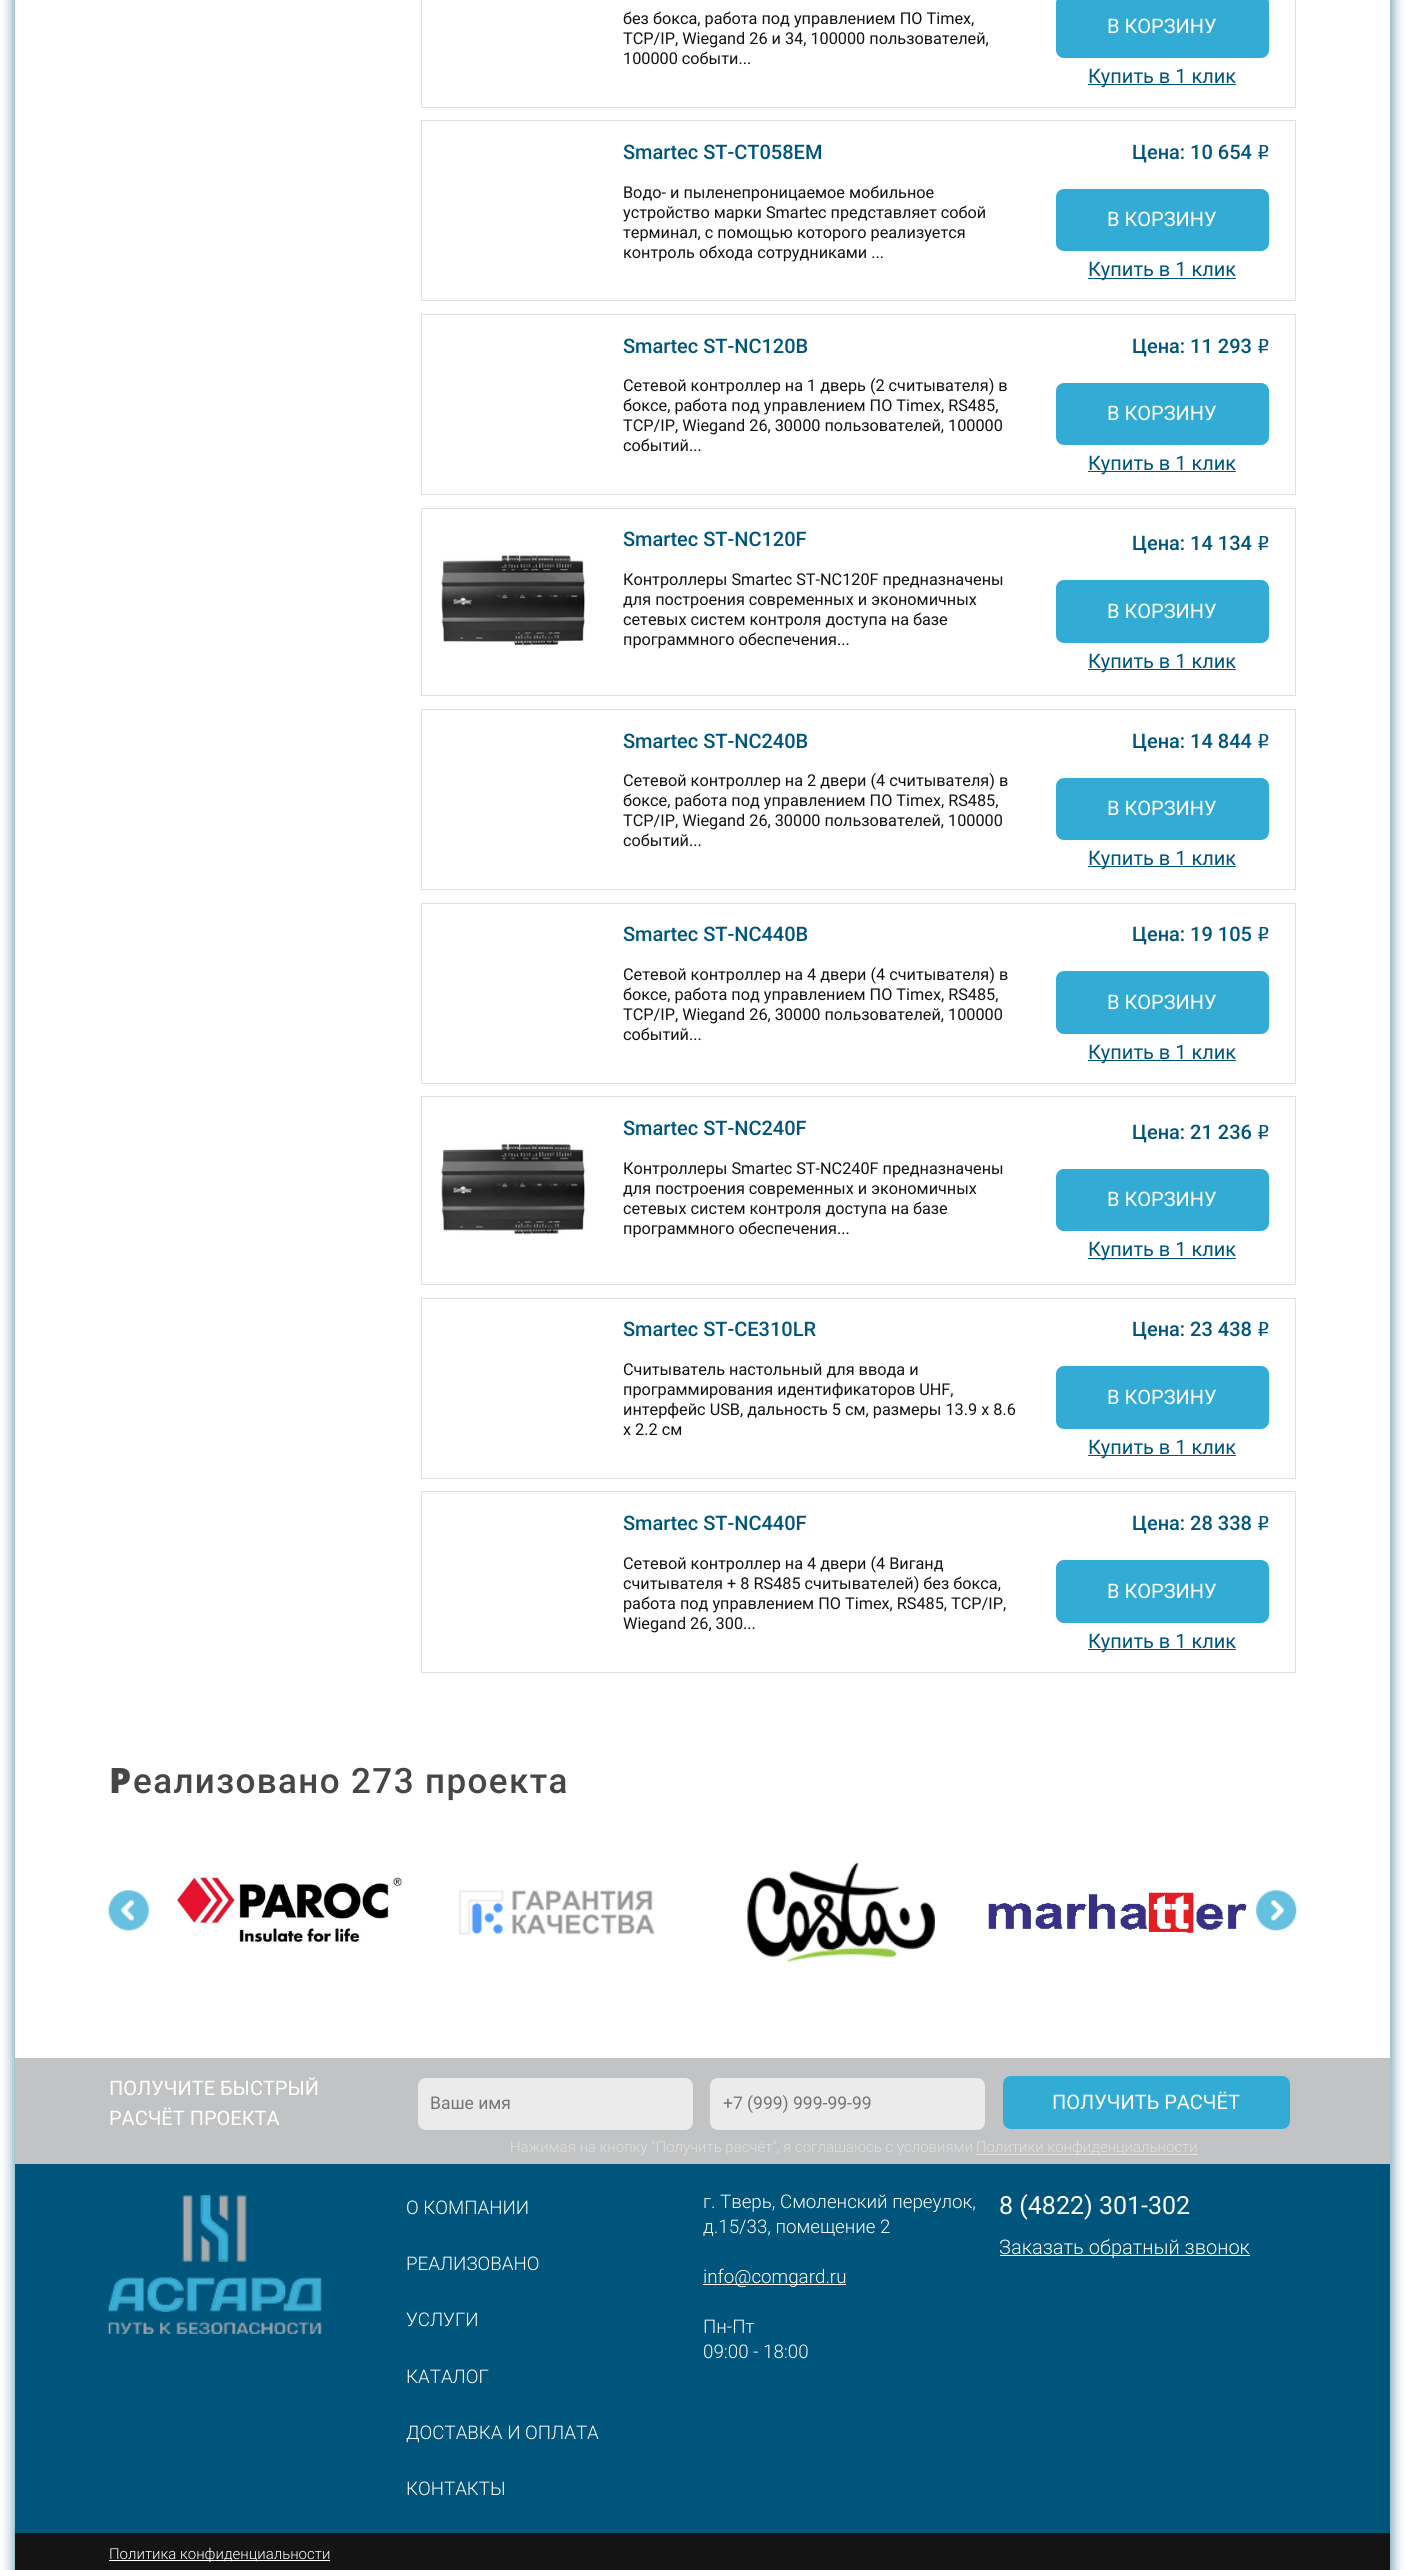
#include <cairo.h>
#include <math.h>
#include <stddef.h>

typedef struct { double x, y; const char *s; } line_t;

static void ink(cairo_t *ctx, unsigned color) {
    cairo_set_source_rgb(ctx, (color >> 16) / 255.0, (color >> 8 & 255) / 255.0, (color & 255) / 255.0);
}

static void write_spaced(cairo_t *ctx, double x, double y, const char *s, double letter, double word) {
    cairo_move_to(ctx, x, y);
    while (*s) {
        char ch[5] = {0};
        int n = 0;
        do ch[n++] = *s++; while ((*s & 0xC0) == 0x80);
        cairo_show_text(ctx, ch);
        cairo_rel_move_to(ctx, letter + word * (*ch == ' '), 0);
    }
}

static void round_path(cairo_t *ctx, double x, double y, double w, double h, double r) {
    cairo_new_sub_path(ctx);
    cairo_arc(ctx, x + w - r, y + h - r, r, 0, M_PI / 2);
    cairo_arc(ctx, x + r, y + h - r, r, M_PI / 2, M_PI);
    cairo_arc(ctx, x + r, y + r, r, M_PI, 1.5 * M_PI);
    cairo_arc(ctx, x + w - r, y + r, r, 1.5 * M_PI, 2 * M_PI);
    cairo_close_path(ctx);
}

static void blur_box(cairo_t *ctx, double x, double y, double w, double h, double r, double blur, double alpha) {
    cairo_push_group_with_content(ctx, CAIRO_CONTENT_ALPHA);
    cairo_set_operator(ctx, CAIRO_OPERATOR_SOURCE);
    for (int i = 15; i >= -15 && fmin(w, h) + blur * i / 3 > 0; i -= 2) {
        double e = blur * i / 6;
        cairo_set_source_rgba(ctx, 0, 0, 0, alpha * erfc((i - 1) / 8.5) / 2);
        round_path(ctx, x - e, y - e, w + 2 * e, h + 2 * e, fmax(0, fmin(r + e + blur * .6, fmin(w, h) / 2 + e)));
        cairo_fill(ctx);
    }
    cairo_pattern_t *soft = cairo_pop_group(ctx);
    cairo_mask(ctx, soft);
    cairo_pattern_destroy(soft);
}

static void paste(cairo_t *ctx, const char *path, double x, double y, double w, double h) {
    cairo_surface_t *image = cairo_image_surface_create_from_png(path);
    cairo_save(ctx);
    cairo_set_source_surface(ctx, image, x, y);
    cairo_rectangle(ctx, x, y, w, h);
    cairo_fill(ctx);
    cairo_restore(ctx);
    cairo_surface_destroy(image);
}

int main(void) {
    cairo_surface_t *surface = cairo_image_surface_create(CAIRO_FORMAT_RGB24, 1405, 2570);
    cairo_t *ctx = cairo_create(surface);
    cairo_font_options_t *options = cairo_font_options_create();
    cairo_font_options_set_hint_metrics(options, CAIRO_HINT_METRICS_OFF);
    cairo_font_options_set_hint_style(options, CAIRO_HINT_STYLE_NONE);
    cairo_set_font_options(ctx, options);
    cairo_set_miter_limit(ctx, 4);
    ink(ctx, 0xFFFFFF);
    cairo_paint(ctx);
    cairo_save(ctx);
    cairo_set_fill_rule(ctx, CAIRO_FILL_RULE_EVEN_ODD);
    cairo_new_path(ctx);
    cairo_move_to(ctx, 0, 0);
    cairo_line_to(ctx, 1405, 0);
    cairo_line_to(ctx, 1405, 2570);
    cairo_line_to(ctx, 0, 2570);
    cairo_close_path(ctx);
    cairo_move_to(ctx, 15, -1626);
    cairo_line_to(ctx, 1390, -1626);
    cairo_line_to(ctx, 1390, 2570);
    cairo_line_to(ctx, 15, 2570);
    cairo_close_path(ctx);
    cairo_clip(ctx);
    ink(ctx, 0x00557C);
    blur_box(ctx, 13, -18, 1380, 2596, 0, 6, 0.55);
    cairo_restore(ctx);
    cairo_rectangle(ctx, 421.5, -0.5, 874, 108);
    ink(ctx, 0xE1E1E1);
    cairo_set_line_width(ctx, 1);
    cairo_stroke(ctx);
    cairo_select_font_face(ctx, "Roboto", CAIRO_FONT_SLANT_NORMAL, CAIRO_FONT_WEIGHT_NORMAL);
    cairo_set_font_size(ctx, 16.25);
    ink(ctx, 0x141414);
    {
        static const line_t items[] = {
            {623, 24, "без бокса, работа под управлением ПО Timex,"},
            {623, 44, "TCP/IP, Wiegand 26 и 34, 100000 пользователей,"},
            {623, 64, "100000 событи..."},
        };
        for (size_t i = 0; i < sizeof items / sizeof *items; i++) {
            cairo_move_to(ctx, items[i].x, items[i].y);
            cairo_show_text(ctx, items[i].s);
        }
    }
    ink(ctx, 0x33ACD5);
    round_path(ctx, 1056, -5, 213, 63, 8);
    cairo_fill(ctx);
    cairo_set_font_size(ctx, 20);
    ink(ctx, 0xFFFFFF);
    cairo_move_to(ctx, 1107, 33);
    cairo_show_text(ctx, "В КОРЗИНУ");
    ink(ctx, 0x00557C);
    cairo_rectangle(ctx, 1088, 84, 148, 1);
    cairo_fill(ctx);
    cairo_move_to(ctx, 1088, 83);
    cairo_show_text(ctx, "Купить в 1 клик");
    cairo_rectangle(ctx, 421.5, 120.5, 874, 180);
    ink(ctx, 0xE1E1E1);
    cairo_stroke(ctx);
    cairo_select_font_face(ctx, "Roboto Medium", CAIRO_FONT_SLANT_NORMAL, CAIRO_FONT_WEIGHT_NORMAL);
    ink(ctx, 0x00557C);
    cairo_move_to(ctx, 623, 159);
    cairo_show_text(ctx, "Smartec ST-CT058EM");
    cairo_select_font_face(ctx, "Roboto", CAIRO_FONT_SLANT_NORMAL, CAIRO_FONT_WEIGHT_NORMAL);
    cairo_set_font_size(ctx, 16.25);
    ink(ctx, 0x141414);
    {
        static const line_t items[] = {
            {623, 198, "Водо- и пыленепроницаемое мобильное"},
            {623, 218, "устройство марки Smartec представляет собой"},
            {623, 238, "терминал, с помощью которого реализуется"},
            {623, 258, "контроль обхода сотрудниками ..."},
        };
        for (size_t i = 0; i < sizeof items / sizeof *items; i++) {
            cairo_move_to(ctx, items[i].x, items[i].y);
            cairo_show_text(ctx, items[i].s);
        }
    }
    cairo_select_font_face(ctx, "Roboto Medium", CAIRO_FONT_SLANT_NORMAL, CAIRO_FONT_WEIGHT_NORMAL);
    cairo_set_font_size(ctx, 20);
    ink(ctx, 0x00557C);
    cairo_move_to(ctx, 1132, 159);
    cairo_show_text(ctx, "Цена: 10 654");
    cairo_select_font_face(ctx, "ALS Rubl", CAIRO_FONT_SLANT_NORMAL, CAIRO_FONT_WEIGHT_NORMAL);
    cairo_move_to(ctx, 1257, 159);
    cairo_show_text(ctx, "o");
    ink(ctx, 0x33ACD5);
    round_path(ctx, 1056, 189, 213, 62, 8);
    cairo_fill(ctx);
    cairo_select_font_face(ctx, "Roboto", CAIRO_FONT_SLANT_NORMAL, CAIRO_FONT_WEIGHT_NORMAL);
    ink(ctx, 0xFFFFFF);
    cairo_move_to(ctx, 1107, 226);
    cairo_show_text(ctx, "В КОРЗИНУ");
    ink(ctx, 0x00557C);
    cairo_rectangle(ctx, 1088, 278, 148, 1);
    cairo_fill(ctx);
    cairo_move_to(ctx, 1088, 276);
    cairo_show_text(ctx, "Купить в 1 клик");
    cairo_rectangle(ctx, 421.5, 314.5, 874, 180);
    ink(ctx, 0xE1E1E1);
    cairo_stroke(ctx);
    cairo_select_font_face(ctx, "Roboto Medium", CAIRO_FONT_SLANT_NORMAL, CAIRO_FONT_WEIGHT_NORMAL);
    ink(ctx, 0x00557C);
    cairo_move_to(ctx, 623, 353);
    cairo_show_text(ctx, "Smartec ST-NC120B");
    cairo_select_font_face(ctx, "Roboto", CAIRO_FONT_SLANT_NORMAL, CAIRO_FONT_WEIGHT_NORMAL);
    cairo_set_font_size(ctx, 16.25);
    ink(ctx, 0x141414);
    {
        static const line_t items[] = {
            {623, 391, "Сетевой контроллер на 1 дверь (2 считывателя) в"},
            {623, 411, "боксе, работа под управлением ПО Timex, RS485,"},
            {623, 431, "TCP/IP, Wiegand 26, 30000 пользователей, 100000"},
            {623, 451, "событий..."},
        };
        for (size_t i = 0; i < sizeof items / sizeof *items; i++) {
            cairo_move_to(ctx, items[i].x, items[i].y);
            cairo_show_text(ctx, items[i].s);
        }
    }
    cairo_select_font_face(ctx, "Roboto Medium", CAIRO_FONT_SLANT_NORMAL, CAIRO_FONT_WEIGHT_NORMAL);
    cairo_set_font_size(ctx, 20);
    ink(ctx, 0x00557C);
    cairo_move_to(ctx, 1132, 353);
    cairo_show_text(ctx, "Цена: 11 293");
    cairo_select_font_face(ctx, "ALS Rubl", CAIRO_FONT_SLANT_NORMAL, CAIRO_FONT_WEIGHT_NORMAL);
    cairo_move_to(ctx, 1257, 353);
    cairo_show_text(ctx, "o");
    ink(ctx, 0x33ACD5);
    round_path(ctx, 1056, 383, 213, 62, 8);
    cairo_fill(ctx);
    cairo_select_font_face(ctx, "Roboto", CAIRO_FONT_SLANT_NORMAL, CAIRO_FONT_WEIGHT_NORMAL);
    ink(ctx, 0xFFFFFF);
    cairo_move_to(ctx, 1107, 420);
    cairo_show_text(ctx, "В КОРЗИНУ");
    ink(ctx, 0x00557C);
    cairo_rectangle(ctx, 1088, 471, 148, 1);
    cairo_fill(ctx);
    cairo_move_to(ctx, 1088, 470);
    cairo_show_text(ctx, "Купить в 1 клик");
    cairo_rectangle(ctx, 421.5, 508.5, 874, 187);
    ink(ctx, 0xE1E1E1);
    cairo_stroke(ctx);
    paste(ctx, "media/1.png", 441, 553, 144, 93);
    cairo_select_font_face(ctx, "Roboto Medium", CAIRO_FONT_SLANT_NORMAL, CAIRO_FONT_WEIGHT_NORMAL);
    ink(ctx, 0x00557C);
    cairo_move_to(ctx, 623, 546);
    cairo_show_text(ctx, "Smartec ST-NC120F");
    cairo_select_font_face(ctx, "Roboto", CAIRO_FONT_SLANT_NORMAL, CAIRO_FONT_WEIGHT_NORMAL);
    cairo_set_font_size(ctx, 16.25);
    ink(ctx, 0x141414);
    {
        static const line_t items[] = {
            {623, 585, "Контроллеры Smartec ST-NC120F предназначены"},
            {623, 605, "для построения современных и экономичных"},
            {623, 625, "сетевых систем контроля доступа на базе"},
            {623, 645, "программного обеспечения..."},
        };
        for (size_t i = 0; i < sizeof items / sizeof *items; i++) {
            cairo_move_to(ctx, items[i].x, items[i].y);
            cairo_show_text(ctx, items[i].s);
        }
    }
    cairo_select_font_face(ctx, "Roboto Medium", CAIRO_FONT_SLANT_NORMAL, CAIRO_FONT_WEIGHT_NORMAL);
    cairo_set_font_size(ctx, 20);
    ink(ctx, 0x00557C);
    cairo_move_to(ctx, 1132, 550);
    cairo_show_text(ctx, "Цена: 14 134");
    cairo_select_font_face(ctx, "ALS Rubl", CAIRO_FONT_SLANT_NORMAL, CAIRO_FONT_WEIGHT_NORMAL);
    cairo_move_to(ctx, 1257, 550);
    cairo_show_text(ctx, "o");
    ink(ctx, 0x33ACD5);
    round_path(ctx, 1056, 580, 213, 63, 8);
    cairo_fill(ctx);
    cairo_select_font_face(ctx, "Roboto", CAIRO_FONT_SLANT_NORMAL, CAIRO_FONT_WEIGHT_NORMAL);
    ink(ctx, 0xFFFFFF);
    cairo_move_to(ctx, 1107, 618);
    cairo_show_text(ctx, "В КОРЗИНУ");
    ink(ctx, 0x00557C);
    cairo_rectangle(ctx, 1088, 669, 148, 1);
    cairo_fill(ctx);
    cairo_move_to(ctx, 1088, 668);
    cairo_show_text(ctx, "Купить в 1 клик");
    cairo_rectangle(ctx, 421.5, 709.5, 874, 180);
    ink(ctx, 0xE1E1E1);
    cairo_stroke(ctx);
    cairo_select_font_face(ctx, "Roboto Medium", CAIRO_FONT_SLANT_NORMAL, CAIRO_FONT_WEIGHT_NORMAL);
    ink(ctx, 0x00557C);
    cairo_move_to(ctx, 623, 748);
    cairo_show_text(ctx, "Smartec ST-NC240B");
    cairo_select_font_face(ctx, "Roboto", CAIRO_FONT_SLANT_NORMAL, CAIRO_FONT_WEIGHT_NORMAL);
    cairo_set_font_size(ctx, 16.25);
    ink(ctx, 0x141414);
    {
        static const line_t items[] = {
            {623, 786, "Сетевой контроллер на 2 двери (4 считывателя) в"},
            {623, 806, "боксе, работа под управлением ПО Timex, RS485,"},
            {623, 826, "TCP/IP, Wiegand 26, 30000 пользователей, 100000"},
            {623, 846, "событий..."},
        };
        for (size_t i = 0; i < sizeof items / sizeof *items; i++) {
            cairo_move_to(ctx, items[i].x, items[i].y);
            cairo_show_text(ctx, items[i].s);
        }
    }
    cairo_select_font_face(ctx, "Roboto Medium", CAIRO_FONT_SLANT_NORMAL, CAIRO_FONT_WEIGHT_NORMAL);
    cairo_set_font_size(ctx, 20);
    ink(ctx, 0x00557C);
    cairo_move_to(ctx, 1132, 748);
    cairo_show_text(ctx, "Цена: 14 844");
    cairo_select_font_face(ctx, "ALS Rubl", CAIRO_FONT_SLANT_NORMAL, CAIRO_FONT_WEIGHT_NORMAL);
    cairo_move_to(ctx, 1257, 748);
    cairo_show_text(ctx, "o");
    ink(ctx, 0x33ACD5);
    round_path(ctx, 1056, 778, 213, 62, 8);
    cairo_fill(ctx);
    cairo_select_font_face(ctx, "Roboto", CAIRO_FONT_SLANT_NORMAL, CAIRO_FONT_WEIGHT_NORMAL);
    ink(ctx, 0xFFFFFF);
    cairo_move_to(ctx, 1107, 815);
    cairo_show_text(ctx, "В КОРЗИНУ");
    ink(ctx, 0x00557C);
    cairo_rectangle(ctx, 1088, 866, 148, 1);
    cairo_fill(ctx);
    cairo_move_to(ctx, 1088, 865);
    cairo_show_text(ctx, "Купить в 1 клик");
    cairo_rectangle(ctx, 421.5, 903.5, 874, 180);
    ink(ctx, 0xE1E1E1);
    cairo_stroke(ctx);
    cairo_select_font_face(ctx, "Roboto Medium", CAIRO_FONT_SLANT_NORMAL, CAIRO_FONT_WEIGHT_NORMAL);
    ink(ctx, 0x00557C);
    cairo_move_to(ctx, 623, 941);
    cairo_show_text(ctx, "Smartec ST-NC440B");
    cairo_select_font_face(ctx, "Roboto", CAIRO_FONT_SLANT_NORMAL, CAIRO_FONT_WEIGHT_NORMAL);
    cairo_set_font_size(ctx, 16.25);
    ink(ctx, 0x141414);
    {
        static const line_t items[] = {
            {623, 980, "Сетевой контроллер на 4 двери (4 считывателя) в"},
            {623, 1000, "боксе, работа под управлением ПО Timex, RS485,"},
            {623, 1020, "TCP/IP, Wiegand 26, 30000 пользователей, 100000"},
            {623, 1040, "событий..."},
        };
        for (size_t i = 0; i < sizeof items / sizeof *items; i++) {
            cairo_move_to(ctx, items[i].x, items[i].y);
            cairo_show_text(ctx, items[i].s);
        }
    }
    cairo_select_font_face(ctx, "Roboto Medium", CAIRO_FONT_SLANT_NORMAL, CAIRO_FONT_WEIGHT_NORMAL);
    cairo_set_font_size(ctx, 20);
    ink(ctx, 0x00557C);
    cairo_move_to(ctx, 1132, 941);
    cairo_show_text(ctx, "Цена: 19 105");
    cairo_select_font_face(ctx, "ALS Rubl", CAIRO_FONT_SLANT_NORMAL, CAIRO_FONT_WEIGHT_NORMAL);
    cairo_move_to(ctx, 1257, 941);
    cairo_show_text(ctx, "o");
    ink(ctx, 0x33ACD5);
    round_path(ctx, 1056, 971, 213, 63, 8);
    cairo_fill(ctx);
    cairo_select_font_face(ctx, "Roboto", CAIRO_FONT_SLANT_NORMAL, CAIRO_FONT_WEIGHT_NORMAL);
    ink(ctx, 0xFFFFFF);
    cairo_move_to(ctx, 1107, 1009);
    cairo_show_text(ctx, "В КОРЗИНУ");
    ink(ctx, 0x00557C);
    cairo_rectangle(ctx, 1088, 1060, 148, 1);
    cairo_fill(ctx);
    cairo_move_to(ctx, 1088, 1059);
    cairo_show_text(ctx, "Купить в 1 клик");
    cairo_rectangle(ctx, 421.5, 1096.5, 874, 188);
    ink(ctx, 0xE1E1E1);
    cairo_stroke(ctx);
    paste(ctx, "media/2.png", 441, 1143, 144, 92);
    cairo_select_font_face(ctx, "Roboto Medium", CAIRO_FONT_SLANT_NORMAL, CAIRO_FONT_WEIGHT_NORMAL);
    ink(ctx, 0x00557C);
    cairo_move_to(ctx, 623, 1135);
    cairo_show_text(ctx, "Smartec ST-NC240F");
    cairo_select_font_face(ctx, "Roboto", CAIRO_FONT_SLANT_NORMAL, CAIRO_FONT_WEIGHT_NORMAL);
    cairo_set_font_size(ctx, 16.25);
    ink(ctx, 0x141414);
    {
        static const line_t items[] = {
            {623, 1174, "Контроллеры Smartec ST-NC240F предназначены"},
            {623, 1194, "для построения современных и экономичных"},
            {623, 1214, "сетевых систем контроля доступа на базе"},
            {623, 1234, "программного обеспечения..."},
        };
        for (size_t i = 0; i < sizeof items / sizeof *items; i++) {
            cairo_move_to(ctx, items[i].x, items[i].y);
            cairo_show_text(ctx, items[i].s);
        }
    }
    cairo_select_font_face(ctx, "Roboto Medium", CAIRO_FONT_SLANT_NORMAL, CAIRO_FONT_WEIGHT_NORMAL);
    cairo_set_font_size(ctx, 20);
    ink(ctx, 0x00557C);
    cairo_move_to(ctx, 1132, 1139);
    cairo_show_text(ctx, "Цена: 21 236");
    cairo_select_font_face(ctx, "ALS Rubl", CAIRO_FONT_SLANT_NORMAL, CAIRO_FONT_WEIGHT_NORMAL);
    cairo_move_to(ctx, 1257, 1139);
    cairo_show_text(ctx, "o");
    ink(ctx, 0x33ACD5);
    round_path(ctx, 1056, 1169, 213, 62, 8);
    cairo_fill(ctx);
    cairo_select_font_face(ctx, "Roboto", CAIRO_FONT_SLANT_NORMAL, CAIRO_FONT_WEIGHT_NORMAL);
    ink(ctx, 0xFFFFFF);
    cairo_move_to(ctx, 1107, 1206);
    cairo_show_text(ctx, "В КОРЗИНУ");
    ink(ctx, 0x00557C);
    cairo_rectangle(ctx, 1088, 1258, 148, 1);
    cairo_fill(ctx);
    cairo_move_to(ctx, 1088, 1256);
    cairo_show_text(ctx, "Купить в 1 клик");
    cairo_rectangle(ctx, 421.5, 1298.5, 874, 180);
    ink(ctx, 0xE1E1E1);
    cairo_stroke(ctx);
    cairo_select_font_face(ctx, "Roboto Medium", CAIRO_FONT_SLANT_NORMAL, CAIRO_FONT_WEIGHT_NORMAL);
    ink(ctx, 0x00557C);
    cairo_move_to(ctx, 623, 1336);
    cairo_show_text(ctx, "Smartec ST-CE310LR");
    cairo_select_font_face(ctx, "Roboto", CAIRO_FONT_SLANT_NORMAL, CAIRO_FONT_WEIGHT_NORMAL);
    cairo_set_font_size(ctx, 16.25);
    ink(ctx, 0x141414);
    {
        static const line_t items[] = {
            {623, 1375, "Считыватель настольный для ввода и"},
            {623, 1395, "программирования идентификаторов UHF,"},
            {623, 1415, "интерфейс USB, дальность 5 cм, размеры 13.9 х 8.6"},
            {623, 1435, "х 2.2 см"},
        };
        for (size_t i = 0; i < sizeof items / sizeof *items; i++) {
            cairo_move_to(ctx, items[i].x, items[i].y);
            cairo_show_text(ctx, items[i].s);
        }
    }
    cairo_select_font_face(ctx, "Roboto Medium", CAIRO_FONT_SLANT_NORMAL, CAIRO_FONT_WEIGHT_NORMAL);
    cairo_set_font_size(ctx, 20);
    ink(ctx, 0x00557C);
    cairo_move_to(ctx, 1132, 1336);
    cairo_show_text(ctx, "Цена: 23 438");
    cairo_select_font_face(ctx, "ALS Rubl", CAIRO_FONT_SLANT_NORMAL, CAIRO_FONT_WEIGHT_NORMAL);
    cairo_move_to(ctx, 1257, 1336);
    cairo_show_text(ctx, "o");
    ink(ctx, 0x33ACD5);
    round_path(ctx, 1056, 1366, 213, 63, 8);
    cairo_fill(ctx);
    cairo_select_font_face(ctx, "Roboto", CAIRO_FONT_SLANT_NORMAL, CAIRO_FONT_WEIGHT_NORMAL);
    ink(ctx, 0xFFFFFF);
    cairo_move_to(ctx, 1107, 1404);
    cairo_show_text(ctx, "В КОРЗИНУ");
    ink(ctx, 0x00557C);
    cairo_rectangle(ctx, 1088, 1455, 148, 1);
    cairo_fill(ctx);
    cairo_move_to(ctx, 1088, 1454);
    cairo_show_text(ctx, "Купить в 1 клик");
    cairo_rectangle(ctx, 421.5, 1491.5, 874, 181);
    ink(ctx, 0xE1E1E1);
    cairo_stroke(ctx);
    cairo_select_font_face(ctx, "Roboto Medium", CAIRO_FONT_SLANT_NORMAL, CAIRO_FONT_WEIGHT_NORMAL);
    ink(ctx, 0x00557C);
    cairo_move_to(ctx, 623, 1530);
    cairo_show_text(ctx, "Smartec ST-NC440F");
    cairo_select_font_face(ctx, "Roboto", CAIRO_FONT_SLANT_NORMAL, CAIRO_FONT_WEIGHT_NORMAL);
    cairo_set_font_size(ctx, 16.25);
    ink(ctx, 0x141414);
    {
        static const line_t items[] = {
            {623, 1569, "Сетевой контроллер на 4 двери (4 Виганд"},
            {623, 1589, "считывателя + 8 RS485 считывателей) без бокса,"},
            {623, 1609, "работа под управлением ПО Timex, RS485, TCP/IP,"},
            {623, 1629, "Wiegand 26, 300..."},
        };
        for (size_t i = 0; i < sizeof items / sizeof *items; i++) {
            cairo_move_to(ctx, items[i].x, items[i].y);
            cairo_show_text(ctx, items[i].s);
        }
    }
    cairo_select_font_face(ctx, "Roboto Medium", CAIRO_FONT_SLANT_NORMAL, CAIRO_FONT_WEIGHT_NORMAL);
    cairo_set_font_size(ctx, 20);
    ink(ctx, 0x00557C);
    cairo_move_to(ctx, 1132, 1530);
    cairo_show_text(ctx, "Цена: 28 338");
    cairo_select_font_face(ctx, "ALS Rubl", CAIRO_FONT_SLANT_NORMAL, CAIRO_FONT_WEIGHT_NORMAL);
    cairo_move_to(ctx, 1257, 1530);
    cairo_show_text(ctx, "o");
    ink(ctx, 0x33ACD5);
    round_path(ctx, 1056, 1560, 213, 63, 8);
    cairo_fill(ctx);
    cairo_select_font_face(ctx, "Roboto", CAIRO_FONT_SLANT_NORMAL, CAIRO_FONT_WEIGHT_NORMAL);
    ink(ctx, 0xFFFFFF);
    cairo_move_to(ctx, 1107, 1598);
    cairo_show_text(ctx, "В КОРЗИНУ");
    ink(ctx, 0x00557C);
    cairo_rectangle(ctx, 1088, 1649, 148, 1);
    cairo_fill(ctx);
    cairo_move_to(ctx, 1088, 1648);
    cairo_show_text(ctx, "Купить в 1 клик");
    cairo_select_font_face(ctx, "Noto Sans Black", CAIRO_FONT_SLANT_NORMAL, CAIRO_FONT_WEIGHT_NORMAL);
    cairo_set_font_size(ctx, 35);
    ink(ctx, 0x464646);
    write_spaced(ctx, 109, 1793, "Р", 1.4, 0);
    cairo_select_font_face(ctx, "Roboto Medium", CAIRO_FONT_SLANT_NORMAL, CAIRO_FONT_WEIGHT_NORMAL);
    write_spaced(ctx, 133, 1793, "еализовано 273 проекта", 1.4, 0);
    paste(ctx, "media/3.png", 175, 1873, 227, 71);
    paste(ctx, "media/4.png", 458, 1890, 197, 45);
    paste(ctx, "media/5.png", 747, 1862, 188, 100);
    paste(ctx, "media/6.png", 988, 1892, 259, 41);
    paste(ctx, "media/7.png", 108, 1890, 41, 41);
    paste(ctx, "media/8.png", 1256, 1890, 41, 41);
    ink(ctx, 0xC2C3C4);
    cairo_rectangle(ctx, 15, 2058, 1375, 106);
    cairo_fill(ctx);
    cairo_select_font_face(ctx, "Roboto", CAIRO_FONT_SLANT_NORMAL, CAIRO_FONT_WEIGHT_NORMAL);
    cairo_set_font_size(ctx, 20);
    ink(ctx, 0xFFFFFF);
    cairo_move_to(ctx, 109, 2095);
    cairo_show_text(ctx, "ПОЛУЧИТЕ БЫСТРЫЙ");
    cairo_move_to(ctx, 109, 2125);
    cairo_show_text(ctx, "РАСЧЁТ ПРОЕКТА");
    ink(ctx, 0xEBEBEB);
    round_path(ctx, 418, 2078, 275, 52, 8);
    cairo_fill(ctx);
    cairo_set_font_size(ctx, 17.5);
    ink(ctx, 0x757575);
    cairo_move_to(ctx, 430, 2109);
    cairo_show_text(ctx, "Ваше имя");
    ink(ctx, 0xEBEBEB);
    round_path(ctx, 710, 2078, 275, 52, 8);
    cairo_fill(ctx);
    ink(ctx, 0x757575);
    cairo_move_to(ctx, 723, 2109);
    cairo_show_text(ctx, "+7 (999) 999-99-99");
    ink(ctx, 0x33ACD5);
    round_path(ctx, 1003, 2076, 287, 53, 8);
    cairo_fill(ctx);
    cairo_set_font_size(ctx, 20);
    ink(ctx, 0xFFFFFF);
    cairo_move_to(ctx, 1052, 2109);
    cairo_show_text(ctx, "ПОЛУЧИТЬ РАСЧЁТ");
    cairo_select_font_face(ctx, "Roboto Light", CAIRO_FONT_SLANT_NORMAL, CAIRO_FONT_WEIGHT_NORMAL);
    cairo_set_font_size(ctx, 15);
    ink(ctx, 0xE1E1E1);
    cairo_move_to(ctx, 510, 2152);
    cairo_show_text(ctx, "Нажимая на кнопку \"Получить расчёт\", я соглашаюсь с условиями");
    cairo_rectangle(ctx, 976, 2154, 222, 1);
    cairo_fill(ctx);
    cairo_move_to(ctx, 976, 2152);
    cairo_show_text(ctx, "Политики конфиденциальности");
    ink(ctx, 0x00557C);
    cairo_rectangle(ctx, 15, 2164, 1375, 369);
    cairo_fill(ctx);
    paste(ctx, "media/9.png", 108, 2195, 214, 139);
    cairo_set_font_size(ctx, 18.75);
    ink(ctx, 0xFFFFFF);
    {
        static const line_t items[] = {
            {406, 2214, "О КОМПАНИИ"},
            {406, 2270, "РЕАЛИЗОВАНО"},
            {406, 2326, "УСЛУГИ"},
            {406, 2383, "КАТАЛОГ"},
            {406, 2439, "ДОСТАВКА И ОПЛАТА"},
            {406, 2495, "КОНТАКТЫ"},
            {703, 2208, "г. Тверь, Смоленский переулок,"},
            {703, 2233, "д.15/33, помещение 2"},
        };
        for (size_t i = 0; i < sizeof items / sizeof *items; i++) {
            cairo_move_to(ctx, items[i].x, items[i].y);
            cairo_show_text(ctx, items[i].s);
        }
    }
    cairo_rectangle(ctx, 703, 2284, 143, 1);
    cairo_fill(ctx);
    {
        static const line_t items[] = {
            {703, 2283, "info@comgard.ru"},
            {703, 2333, "Пн-Пт"},
            {703, 2358, "09:00 - 18:00"},
        };
        for (size_t i = 0; i < sizeof items / sizeof *items; i++) {
            cairo_move_to(ctx, items[i].x, items[i].y);
            cairo_show_text(ctx, items[i].s);
        }
    }
    cairo_select_font_face(ctx, "Roboto", CAIRO_FONT_SLANT_NORMAL, CAIRO_FONT_WEIGHT_NORMAL);
    cairo_set_font_size(ctx, 25);
    cairo_move_to(ctx, 999, 2214);
    cairo_show_text(ctx, "8 (4822) 301-302");
    cairo_rectangle(ctx, 1000, 2255, 250, 1);
    cairo_fill(ctx);
    cairo_select_font_face(ctx, "Roboto Light", CAIRO_FONT_SLANT_NORMAL, CAIRO_FONT_WEIGHT_NORMAL);
    cairo_set_font_size(ctx, 20);
    cairo_move_to(ctx, 999, 2254);
    cairo_show_text(ctx, "Заказать обратный звонок");
    ink(ctx, 0x141414);
    cairo_rectangle(ctx, 15, 2533, 1375, 37);
    cairo_fill(ctx);
    ink(ctx, 0xFEFEFE);
    cairo_rectangle(ctx, 109, 2560, 221, 1);
    cairo_fill(ctx);
    cairo_set_font_size(ctx, 15);
    ink(ctx, 0xFFFFFF);
    cairo_move_to(ctx, 109, 2559);
    cairo_show_text(ctx, "Политика конфиденциальности");
    cairo_surface_write_to_png(surface, "image.png");
    cairo_font_options_destroy(options);
    cairo_destroy(ctx);
    cairo_surface_destroy(surface);
    return 0;
}
